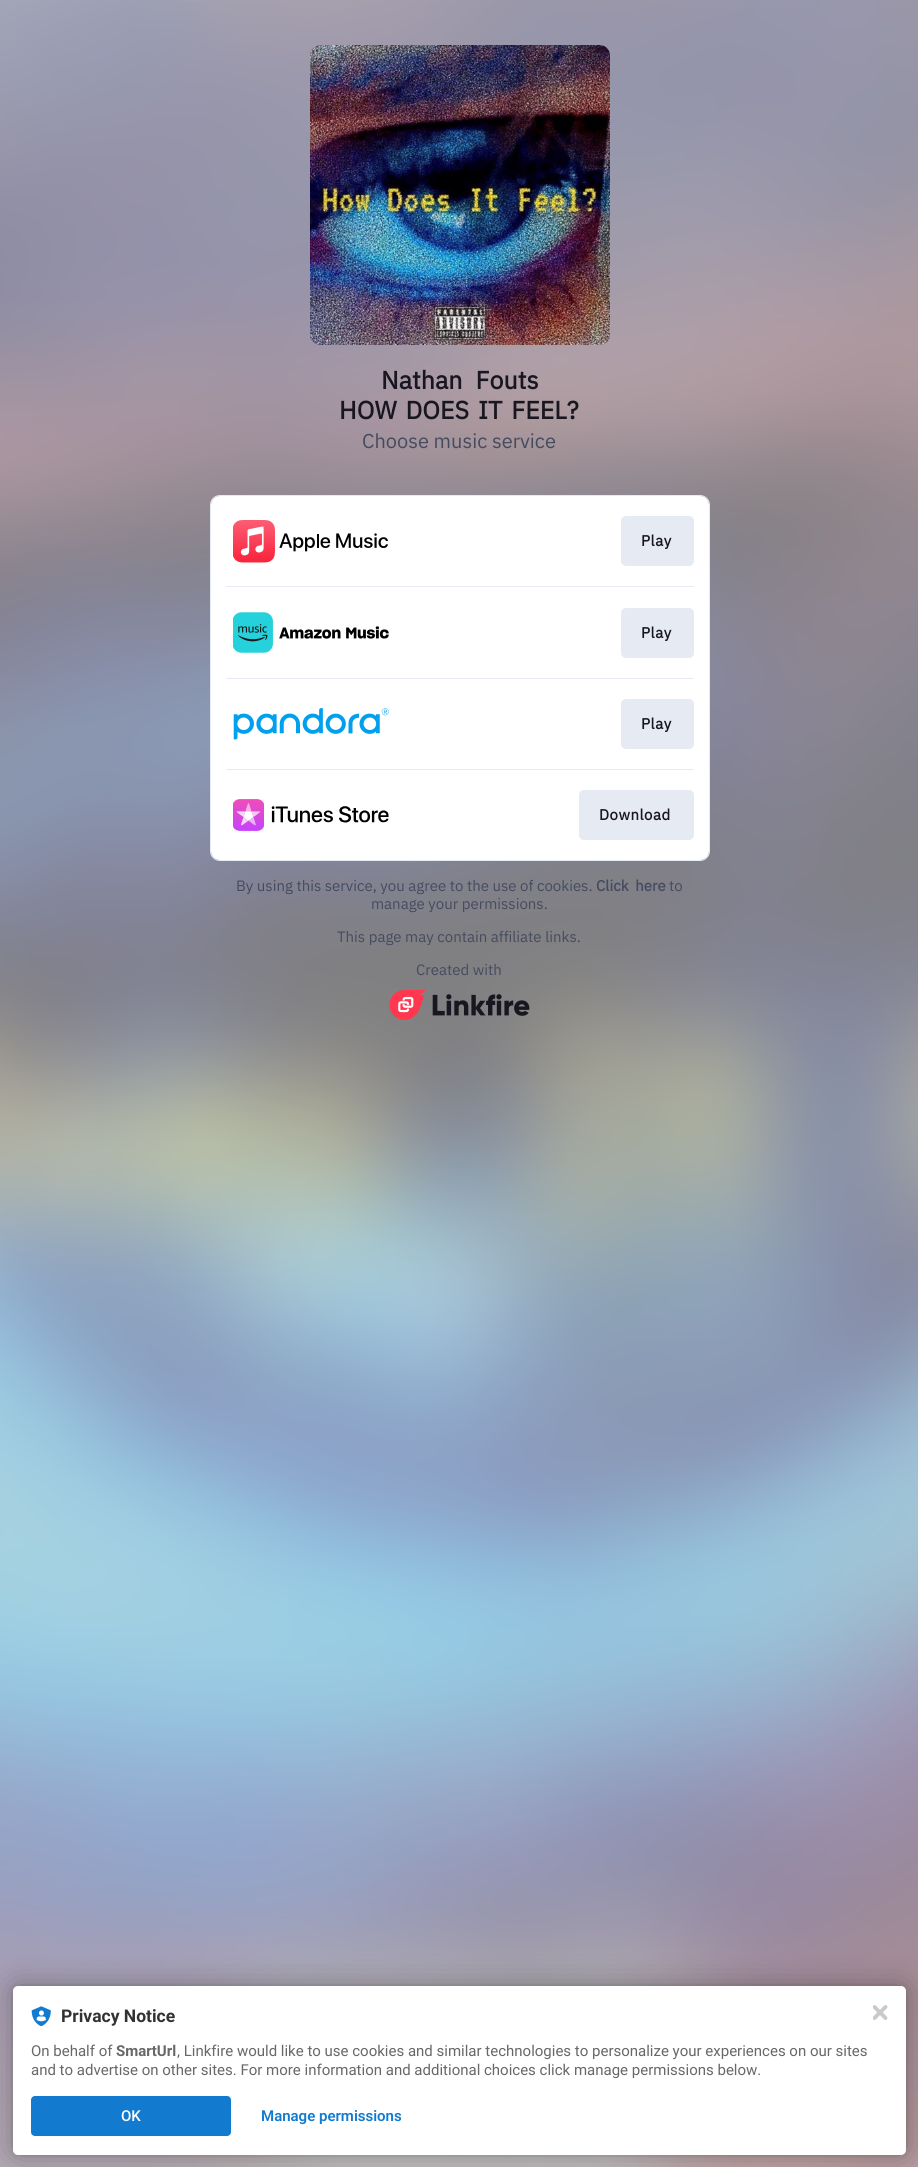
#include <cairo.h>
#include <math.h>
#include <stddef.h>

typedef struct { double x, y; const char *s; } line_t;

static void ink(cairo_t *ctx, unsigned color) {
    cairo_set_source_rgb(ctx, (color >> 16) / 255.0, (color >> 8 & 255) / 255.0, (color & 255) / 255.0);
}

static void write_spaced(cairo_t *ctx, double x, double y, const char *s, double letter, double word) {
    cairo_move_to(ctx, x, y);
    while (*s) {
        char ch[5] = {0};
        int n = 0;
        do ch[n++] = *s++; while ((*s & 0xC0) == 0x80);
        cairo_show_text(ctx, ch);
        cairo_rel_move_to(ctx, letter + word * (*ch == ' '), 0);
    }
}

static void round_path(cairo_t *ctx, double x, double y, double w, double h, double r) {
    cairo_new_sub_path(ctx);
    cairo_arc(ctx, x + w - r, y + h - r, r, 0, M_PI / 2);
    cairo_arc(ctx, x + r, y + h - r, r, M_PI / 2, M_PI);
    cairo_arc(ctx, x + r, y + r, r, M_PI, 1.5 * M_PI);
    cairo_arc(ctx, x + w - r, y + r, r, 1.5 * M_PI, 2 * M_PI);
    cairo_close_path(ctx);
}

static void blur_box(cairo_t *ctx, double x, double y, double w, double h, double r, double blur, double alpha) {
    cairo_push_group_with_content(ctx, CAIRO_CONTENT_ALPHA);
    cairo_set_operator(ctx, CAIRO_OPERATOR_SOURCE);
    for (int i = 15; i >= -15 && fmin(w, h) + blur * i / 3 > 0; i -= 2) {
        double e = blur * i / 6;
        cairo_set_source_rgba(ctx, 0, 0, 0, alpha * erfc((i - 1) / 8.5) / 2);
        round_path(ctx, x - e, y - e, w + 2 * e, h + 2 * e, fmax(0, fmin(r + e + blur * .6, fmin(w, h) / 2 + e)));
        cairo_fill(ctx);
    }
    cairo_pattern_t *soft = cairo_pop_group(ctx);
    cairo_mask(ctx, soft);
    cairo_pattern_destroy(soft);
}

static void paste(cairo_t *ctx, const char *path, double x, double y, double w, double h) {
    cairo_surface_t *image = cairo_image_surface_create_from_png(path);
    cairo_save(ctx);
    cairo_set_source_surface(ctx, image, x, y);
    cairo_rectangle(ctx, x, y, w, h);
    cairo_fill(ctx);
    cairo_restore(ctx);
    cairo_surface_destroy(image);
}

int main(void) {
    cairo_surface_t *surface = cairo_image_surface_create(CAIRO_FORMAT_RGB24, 918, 2167);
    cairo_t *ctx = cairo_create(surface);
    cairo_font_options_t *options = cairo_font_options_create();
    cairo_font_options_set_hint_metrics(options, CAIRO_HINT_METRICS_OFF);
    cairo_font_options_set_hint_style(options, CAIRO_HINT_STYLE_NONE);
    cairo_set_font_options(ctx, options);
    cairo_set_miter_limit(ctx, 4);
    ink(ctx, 0xFFFFFF);
    cairo_paint(ctx);
    paste(ctx, "media/1.png", 0, 0, 918, 2167);
    paste(ctx, "media/2.png", 310, 45, 300, 300);
    cairo_select_font_face(ctx, "IBM Plex Sans", CAIRO_FONT_SLANT_NORMAL, CAIRO_FONT_WEIGHT_BOLD);
    cairo_set_font_size(ctx, 25);
    ink(ctx, 0x181721);
    write_spaced(ctx, 381, 389, "Nathan Fouts", 0, 7);
    write_spaced(ctx, 339, 419, "HOW DOES IT FEEL?", 0, 3);
    cairo_select_font_face(ctx, "IBM Plex Sans", CAIRO_FONT_SLANT_NORMAL, CAIRO_FONT_WEIGHT_NORMAL);
    cairo_set_font_size(ctx, 20);
    ink(ctx, 0x454B5F);
    cairo_move_to(ctx, 362, 448);
    cairo_show_text(ctx, "Choose music service");
    round_path(ctx, 210.5, 495.5, 499, 365, 9.5);
    ink(ctx, 0xE6EAF2);
    cairo_set_line_width(ctx, 1);
    cairo_stroke(ctx);
    ink(ctx, 0xFFFFFF);
    round_path(ctx, 211, 496, 498, 364, 9);
    cairo_fill(ctx);
    paste(ctx, "media/3.png", 233, 520, 155, 43);
    ink(ctx, 0xE6EAF2);
    round_path(ctx, 621, 516, 73, 50, 5);
    cairo_fill(ctx);
    cairo_select_font_face(ctx, "IBM Plex Sans", CAIRO_FONT_SLANT_NORMAL, CAIRO_FONT_WEIGHT_BOLD);
    cairo_set_font_size(ctx, 15);
    ink(ctx, 0x181721);
    write_spaced(ctx, 641, 546, "Play", 0.5, 0);
    ink(ctx, 0xE6EAF2);
    cairo_rectangle(ctx, 226, 586, 468, 1);
    cairo_fill(ctx);
    paste(ctx, "media/4.png", 233, 612, 156, 41);
    round_path(ctx, 621, 608, 73, 50, 5);
    cairo_fill(ctx);
    ink(ctx, 0x181721);
    write_spaced(ctx, 641, 638, "Play", 0.5, 0);
    ink(ctx, 0xE6EAF2);
    cairo_rectangle(ctx, 226, 678, 468, 1);
    cairo_fill(ctx);
    paste(ctx, "media/5.png", 233, 708, 156, 32);
    round_path(ctx, 621, 699, 73, 50, 5);
    cairo_fill(ctx);
    ink(ctx, 0x181721);
    write_spaced(ctx, 641, 729, "Play", 0.5, 0);
    ink(ctx, 0xE6EAF2);
    cairo_rectangle(ctx, 226, 769, 468, 1);
    cairo_fill(ctx);
    paste(ctx, "media/6.png", 233, 799, 156, 32);
    round_path(ctx, 579, 790, 115, 50, 5);
    cairo_fill(ctx);
    ink(ctx, 0x181721);
    write_spaced(ctx, 599, 820, "Download", 0.5, 0);
    cairo_select_font_face(ctx, "IBM Plex Sans", CAIRO_FONT_SLANT_NORMAL, CAIRO_FONT_WEIGHT_NORMAL);
    ink(ctx, 0x454B5F);
    cairo_move_to(ctx, 236, 891);
    cairo_show_text(ctx, "By using this service, you agree to the use of cookies.");
    cairo_select_font_face(ctx, "IBM Plex Sans", CAIRO_FONT_SLANT_NORMAL, CAIRO_FONT_WEIGHT_BOLD);
    write_spaced(ctx, 596, 891, "Click here", 0, 3);
    cairo_select_font_face(ctx, "IBM Plex Sans", CAIRO_FONT_SLANT_NORMAL, CAIRO_FONT_WEIGHT_NORMAL);
    {
        static const line_t items[] = {
            {669, 891, "to"},
            {371, 909, "manage your permissions."},
            {337, 942, "This page may contain affiliate links."},
            {416, 975, "Created with"},
        };
        for (size_t i = 0; i < sizeof items / sizeof *items; i++) {
            cairo_move_to(ctx, items[i].x, items[i].y);
            cairo_show_text(ctx, items[i].s);
        }
    }
    paste(ctx, "media/7.png", 389, 990, 141, 30);
    ink(ctx, 0x000000);
    blur_box(ctx, 13, 1986, 893, 169, 5, 2.5, 0.12);
    blur_box(ctx, 13, 1986, 893, 169, 5, 15, 0.3);
    ink(ctx, 0xFFFFFF);
    round_path(ctx, 13, 1986, 893, 169, 5);
    cairo_fill(ctx);
    paste(ctx, "media/8.png", 31, 2006, 20, 20);
    cairo_select_font_face(ctx, "Roboto", CAIRO_FONT_SLANT_NORMAL, CAIRO_FONT_WEIGHT_BOLD);
    cairo_set_font_size(ctx, 17.5);
    ink(ctx, 0x323232);
    cairo_move_to(ctx, 61, 2022);
    cairo_show_text(ctx, "Privacy Notice");
    cairo_select_font_face(ctx, "Roboto", CAIRO_FONT_SLANT_NORMAL, CAIRO_FONT_WEIGHT_NORMAL);
    cairo_set_font_size(ctx, 15);
    ink(ctx, 0x686868);
    cairo_move_to(ctx, 31, 2056);
    cairo_show_text(ctx, "On behalf of");
    cairo_select_font_face(ctx, "Roboto", CAIRO_FONT_SLANT_NORMAL, CAIRO_FONT_WEIGHT_BOLD);
    cairo_move_to(ctx, 116, 2056);
    cairo_show_text(ctx, "SmartUrl");
    cairo_select_font_face(ctx, "Roboto", CAIRO_FONT_SLANT_NORMAL, CAIRO_FONT_WEIGHT_NORMAL);
    cairo_move_to(ctx, 177, 2056);
    cairo_show_text(ctx, ", Linkfire would like to use cookies and similar technologies to personalize your experiences on our sites");
    cairo_move_to(ctx, 31, 2075);
    cairo_show_text(ctx, "and to advertise on other sites. For more information and additional choices click manage permissions below.");
    ink(ctx, 0x137BCF);
    round_path(ctx, 31, 2096, 200, 40, 4);
    cairo_fill(ctx);
    cairo_select_font_face(ctx, "Roboto Medium", CAIRO_FONT_SLANT_NORMAL, CAIRO_FONT_WEIGHT_NORMAL);
    ink(ctx, 0xFFFFFF);
    cairo_move_to(ctx, 121, 2121);
    cairo_show_text(ctx, "OK");
    cairo_select_font_face(ctx, "Roboto SemiBold", CAIRO_FONT_SLANT_NORMAL, CAIRO_FONT_WEIGHT_NORMAL);
    ink(ctx, 0x137BCF);
    cairo_move_to(ctx, 261, 2121);
    cairo_show_text(ctx, "Manage permissions");
    paste(ctx, "media/9.png", 873, 2005, 15, 15);
    cairo_surface_write_to_png(surface, "image.png");
    cairo_font_options_destroy(options);
    cairo_destroy(ctx);
    cairo_surface_destroy(surface);
    return 0;
}
